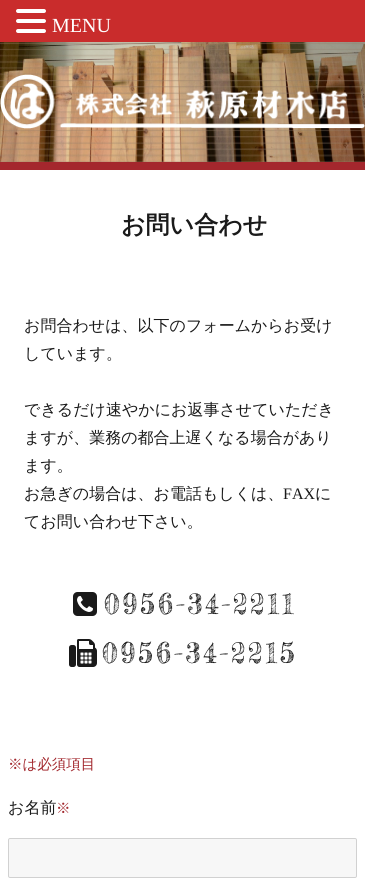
#include <cairo.h>
#include <math.h>
#include <stddef.h>

typedef struct { double x, y; const char *s; } line_t;

static void ink(cairo_t *ctx, unsigned color) {
    cairo_set_source_rgb(ctx, (color >> 16) / 255.0, (color >> 8 & 255) / 255.0, (color & 255) / 255.0);
}

static void write_spaced(cairo_t *ctx, double x, double y, const char *s, double letter, double word) {
    cairo_move_to(ctx, x, y);
    while (*s) {
        char ch[5] = {0};
        int n = 0;
        do ch[n++] = *s++; while ((*s & 0xC0) == 0x80);
        cairo_show_text(ctx, ch);
        cairo_rel_move_to(ctx, letter + word * (*ch == ' '), 0);
    }
}

static void round_path(cairo_t *ctx, double x, double y, double w, double h, double r) {
    cairo_new_sub_path(ctx);
    cairo_arc(ctx, x + w - r, y + h - r, r, 0, M_PI / 2);
    cairo_arc(ctx, x + r, y + h - r, r, M_PI / 2, M_PI);
    cairo_arc(ctx, x + r, y + r, r, M_PI, 1.5 * M_PI);
    cairo_arc(ctx, x + w - r, y + r, r, 1.5 * M_PI, 2 * M_PI);
    cairo_close_path(ctx);
}

static void paste(cairo_t *ctx, const char *path, double x, double y, double w, double h) {
    cairo_surface_t *image = cairo_image_surface_create_from_png(path);
    cairo_save(ctx);
    cairo_set_source_surface(ctx, image, x, y);
    cairo_rectangle(ctx, x, y, w, h);
    cairo_fill(ctx);
    cairo_restore(ctx);
    cairo_surface_destroy(image);
}

int main(void) {
    cairo_surface_t *surface = cairo_image_surface_create(CAIRO_FORMAT_RGB24, 365, 881);
    cairo_t *ctx = cairo_create(surface);
    cairo_font_options_t *options = cairo_font_options_create();
    cairo_font_options_set_hint_metrics(options, CAIRO_HINT_METRICS_OFF);
    cairo_font_options_set_hint_style(options, CAIRO_HINT_STYLE_NONE);
    cairo_set_font_options(ctx, options);
    cairo_set_miter_limit(ctx, 4);
    ink(ctx, 0xFFFFFF);
    cairo_paint(ctx);
    ink(ctx, 0xC92C2C);
    cairo_rectangle(ctx, 0, 0, 365, 42);
    cairo_fill(ctx);
    ink(ctx, 0xFFFFFF);
    round_path(ctx, 16, 9, 30, 4, 2);
    cairo_fill(ctx);
    round_path(ctx, 16, 19, 30, 4, 2);
    cairo_fill(ctx);
    round_path(ctx, 16, 29, 30, 4, 2);
    cairo_fill(ctx);
    cairo_select_font_face(ctx, "Liberation Serif", CAIRO_FONT_SLANT_NORMAL, CAIRO_FONT_WEIGHT_NORMAL);
    cairo_set_font_size(ctx, 20);
    cairo_move_to(ctx, 52, 32);
    cairo_show_text(ctx, "MENU");
    paste(ctx, "media/1.png", 0, 42, 365, 120);
    paste(ctx, "media/2.png", 0, 42, 365, 120);
    paste(ctx, "media/3.png", 0, 74, 365, 55);
    ink(ctx, 0xA4272D);
    cairo_rectangle(ctx, 0, 162, 365, 8);
    cairo_fill(ctx);
    cairo_select_font_face(ctx, "WenQuanYi Zen Hei", CAIRO_FONT_SLANT_NORMAL, CAIRO_FONT_WEIGHT_BOLD);
    cairo_set_font_size(ctx, 24);
    ink(ctx, 0x1A1A1A);
    cairo_move_to(ctx, 121, 233);
    cairo_show_text(ctx, "お問い合わせ");
    cairo_select_font_face(ctx, "WenQuanYi Zen Hei Medium", CAIRO_FONT_SLANT_NORMAL, CAIRO_FONT_WEIGHT_NORMAL);
    cairo_set_font_size(ctx, 16);
    {
        static const line_t items[] = {
            {24, 331, "お問合わせは、以下のフォームからお受け"},
            {24, 359, "しています。"},
            {24, 415, "できるだけ速やかにお返事させていただき"},
            {24, 443, "ますが、業務の都合上遅くなる場合があり"},
            {24, 471, "ます。"},
            {24, 499, "お急ぎの場合は、お電話もしくは、"},
        };
        for (size_t i = 0; i < sizeof items / sizeof *items; i++) {
            cairo_move_to(ctx, items[i].x, items[i].y);
            cairo_show_text(ctx, items[i].s);
        }
    }
    cairo_select_font_face(ctx, "Liberation Serif", CAIRO_FONT_SLANT_NORMAL, CAIRO_FONT_WEIGHT_NORMAL);
    cairo_move_to(ctx, 283, 499);
    cairo_show_text(ctx, "FAX");
    cairo_select_font_face(ctx, "WenQuanYi Zen Hei Medium", CAIRO_FONT_SLANT_NORMAL, CAIRO_FONT_WEIGHT_NORMAL);
    cairo_move_to(ctx, 315, 499);
    cairo_show_text(ctx, "に");
    cairo_move_to(ctx, 24, 527);
    cairo_show_text(ctx, "てお問い合わせ下さい。");
    paste(ctx, "media/4.png", 73, 592, 24, 24);
    cairo_select_font_face(ctx, "Fredericka the Great", CAIRO_FONT_SLANT_NORMAL, CAIRO_FONT_WEIGHT_NORMAL);
    cairo_set_font_size(ctx, 28);
    write_spaced(ctx, 104, 614, "0956-34-2211", 2.75, 0);
    paste(ctx, "media/5.png", 69, 639, 28, 28);
    write_spaced(ctx, 102, 663, "0956-34-2215", 2.75, 0);
    cairo_select_font_face(ctx, "WenQuanYi Zen Hei Medium", CAIRO_FONT_SLANT_NORMAL, CAIRO_FONT_WEIGHT_NORMAL);
    cairo_set_font_size(ctx, 14.5);
    ink(ctx, 0xA2272D);
    cairo_move_to(ctx, 8, 769);
    cairo_show_text(ctx, "※は必須項目");
    cairo_set_font_size(ctx, 16);
    ink(ctx, 0x1A1A1A);
    cairo_move_to(ctx, 8, 813);
    cairo_show_text(ctx, "お名前");
    cairo_set_font_size(ctx, 14.5);
    ink(ctx, 0xA2272D);
    cairo_move_to(ctx, 56, 813);
    cairo_show_text(ctx, "※");
    ink(ctx, 0xF7F7F7);
    round_path(ctx, 8.5, 838.5, 348, 39, 1.5);
    cairo_fill_preserve(ctx);
    ink(ctx, 0xD1D1D1);
    cairo_set_line_width(ctx, 1);
    cairo_stroke(ctx);
    cairo_surface_write_to_png(surface, "image.png");
    cairo_font_options_destroy(options);
    cairo_destroy(ctx);
    cairo_surface_destroy(surface);
    return 0;
}
